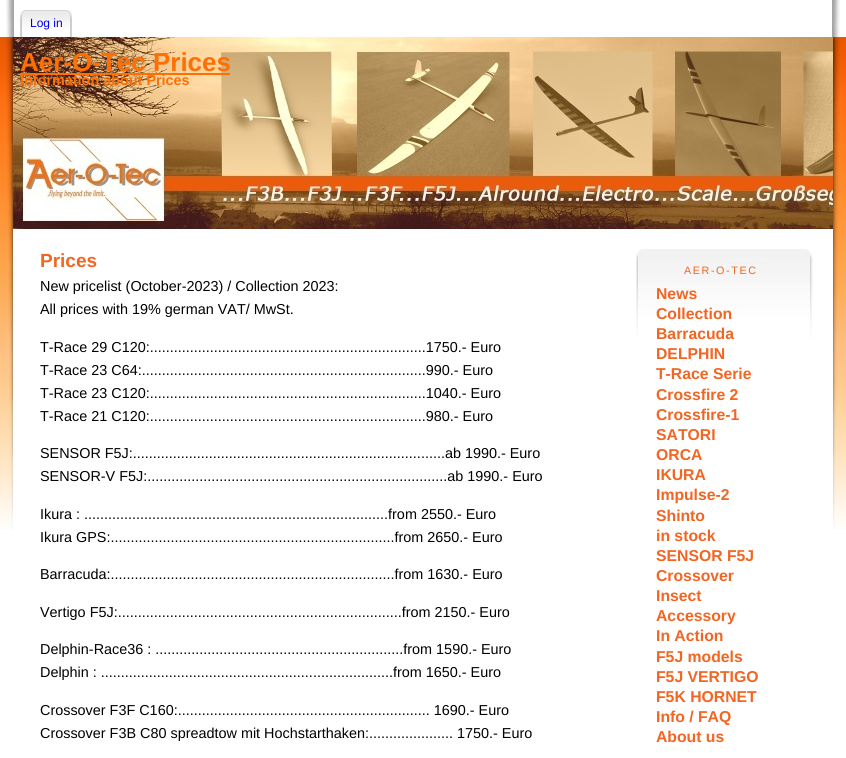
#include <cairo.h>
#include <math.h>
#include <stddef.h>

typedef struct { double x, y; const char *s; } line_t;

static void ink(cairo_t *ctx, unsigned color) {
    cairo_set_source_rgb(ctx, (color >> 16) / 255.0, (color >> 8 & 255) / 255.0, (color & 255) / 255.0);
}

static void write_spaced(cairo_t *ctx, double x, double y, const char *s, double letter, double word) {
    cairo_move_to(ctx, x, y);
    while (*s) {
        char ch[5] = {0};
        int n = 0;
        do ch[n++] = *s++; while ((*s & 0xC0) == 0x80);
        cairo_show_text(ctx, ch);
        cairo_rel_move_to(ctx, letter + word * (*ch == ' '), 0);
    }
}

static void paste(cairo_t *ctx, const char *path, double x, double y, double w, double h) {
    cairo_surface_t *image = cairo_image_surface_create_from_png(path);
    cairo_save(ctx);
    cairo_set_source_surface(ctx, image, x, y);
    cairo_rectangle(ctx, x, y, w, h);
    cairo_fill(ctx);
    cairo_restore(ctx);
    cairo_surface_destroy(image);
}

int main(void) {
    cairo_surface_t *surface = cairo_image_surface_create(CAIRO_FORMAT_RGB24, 846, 758);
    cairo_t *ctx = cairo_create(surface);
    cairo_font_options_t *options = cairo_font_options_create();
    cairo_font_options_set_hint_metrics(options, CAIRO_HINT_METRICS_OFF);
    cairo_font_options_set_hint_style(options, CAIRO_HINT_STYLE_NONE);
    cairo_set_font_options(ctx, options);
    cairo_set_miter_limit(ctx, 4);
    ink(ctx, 0xFFFFFF);
    cairo_paint(ctx);
    paste(ctx, "media/1.png", 832, 0, 8, 37);
    paste(ctx, "media/2.png", 6, 0, 8, 37);
    paste(ctx, "media/3.png", 20, 10, 4, 27);
    paste(ctx, "media/4.png", 24, 10, 48, 27);
    cairo_select_font_face(ctx, "Liberation Sans", CAIRO_FONT_SLANT_NORMAL, CAIRO_FONT_WEIGHT_NORMAL);
    cairo_set_font_size(ctx, 12);
    ink(ctx, 0x0000EE);
    cairo_move_to(ctx, 30, 27);
    cairo_show_text(ctx, "Log in");
    paste(ctx, "media/5.png", 13, 37, 820, 192);
    paste(ctx, "media/6.png", 0, 37, 13, 192);
    paste(ctx, "media/7.png", 833, 37, 13, 192);
    cairo_select_font_face(ctx, "Liberation Sans", CAIRO_FONT_SLANT_NORMAL, CAIRO_FONT_WEIGHT_BOLD);
    cairo_set_font_size(ctx, 26);
    ink(ctx, 0xFF6F02);
    cairo_move_to(ctx, 20, 71);
    cairo_show_text(ctx, "Aer-O-Tec Prices");
    cairo_rectangle(ctx, 20, 73, 210, 2);
    cairo_fill(ctx);
    cairo_set_font_size(ctx, 14.4);
    cairo_move_to(ctx, 20, 85);
    cairo_show_text(ctx, "Information about Prices");
    paste(ctx, "media/8.png", 0, 229, 13, 301);
    paste(ctx, "media/9.png", 833, 229, 13, 301);
    cairo_set_font_size(ctx, 19);
    ink(ctx, 0xF26522);
    cairo_move_to(ctx, 40, 267);
    cairo_show_text(ctx, "Prices");
    cairo_select_font_face(ctx, "Liberation Sans", CAIRO_FONT_SLANT_NORMAL, CAIRO_FONT_WEIGHT_NORMAL);
    cairo_set_font_size(ctx, 14.4);
    ink(ctx, 0x000000);
    {
        static const line_t items[] = {
            {40, 291, "New pricelist (October-2023) / Collection 2023:"},
            {40, 314, "All prices with 19% german VAT/ MwSt."},
            {40, 352, "T-Race 29 C120:.....................................................................1750.- Euro"},
            {40, 375, "T-Race 23 C64:.......................................................................990.- Euro"},
            {40, 398, "T-Race 23 C120:.....................................................................1040.- Euro"},
            {40, 421, "T-Race 21 C120:.....................................................................980.- Euro"},
            {40, 458, "SENSOR F5J:..............................................................................ab 1990.- Euro"},
            {40, 481, "SENSOR-V F5J:...........................................................................ab 1990.- Euro"},
            {40, 519, "Ikura : ............................................................................from 2550.- Euro"},
            {40, 542, "Ikura GPS:.......................................................................from 2650.- Euro"},
            {40, 579, "Barracuda:.......................................................................from 1630.- Euro"},
            {40, 617, "Vertigo F5J:.......................................................................from 2150.- Euro"},
            {40, 654, "Delphin-Race36 : ..............................................................from 1590.- Euro"},
            {40, 677, "Delphin : .........................................................................from 1650.- Euro"},
            {40, 715, "Crossover F3F C160:............................................................... 1690.- Euro"},
            {40, 738, "Crossover F3B C80 spreadtow mit Hochstarthaken:..................... 1750.- Euro"},
        };
        for (size_t i = 0; i < sizeof items / sizeof *items; i++) {
            cairo_move_to(ctx, items[i].x, items[i].y);
            cairo_show_text(ctx, items[i].s);
        }
    }
    paste(ctx, "media/10.png", 636, 249, 177, 89);
    cairo_set_font_size(ctx, 10.75);
    ink(ctx, 0xF26522);
    write_spaced(ctx, 684, 274, "AER-O-TEC", 1.6, 0);
    cairo_select_font_face(ctx, "Liberation Sans", CAIRO_FONT_SLANT_NORMAL, CAIRO_FONT_WEIGHT_BOLD);
    cairo_set_font_size(ctx, 15.75);
    {
        static const line_t items[] = {
            {656, 299, "News"},
            {656, 319, "Collection"},
            {656, 339, "Barracuda"},
            {656, 359, "DELPHIN"},
            {656, 379, "T-Race Serie"},
            {656, 400, "Crossfire 2"},
            {656, 420, "Crossfire-1"},
            {656, 440, "SATORI"},
            {656, 460, "ORCA"},
            {656, 480, "IKURA"},
            {656, 500, "Impulse-2"},
            {656, 521, "Shinto"},
            {656, 541, "in stock"},
            {656, 561, "SENSOR F5J"},
            {656, 581, "Crossover"},
            {656, 601, "Insect"},
            {656, 621, "Accessory"},
            {656, 641, "In Action"},
            {656, 662, "F5J models"},
            {656, 682, "F5J VERTIGO"},
            {656, 702, "F5K HORNET"},
            {656, 722, "Info / FAQ"},
            {656, 742, "About us"},
        };
        for (size_t i = 0; i < sizeof items / sizeof *items; i++) {
            cairo_move_to(ctx, items[i].x, items[i].y);
            cairo_show_text(ctx, items[i].s);
        }
    }
    cairo_surface_write_to_png(surface, "image.png");
    cairo_font_options_destroy(options);
    cairo_destroy(ctx);
    cairo_surface_destroy(surface);
    return 0;
}
